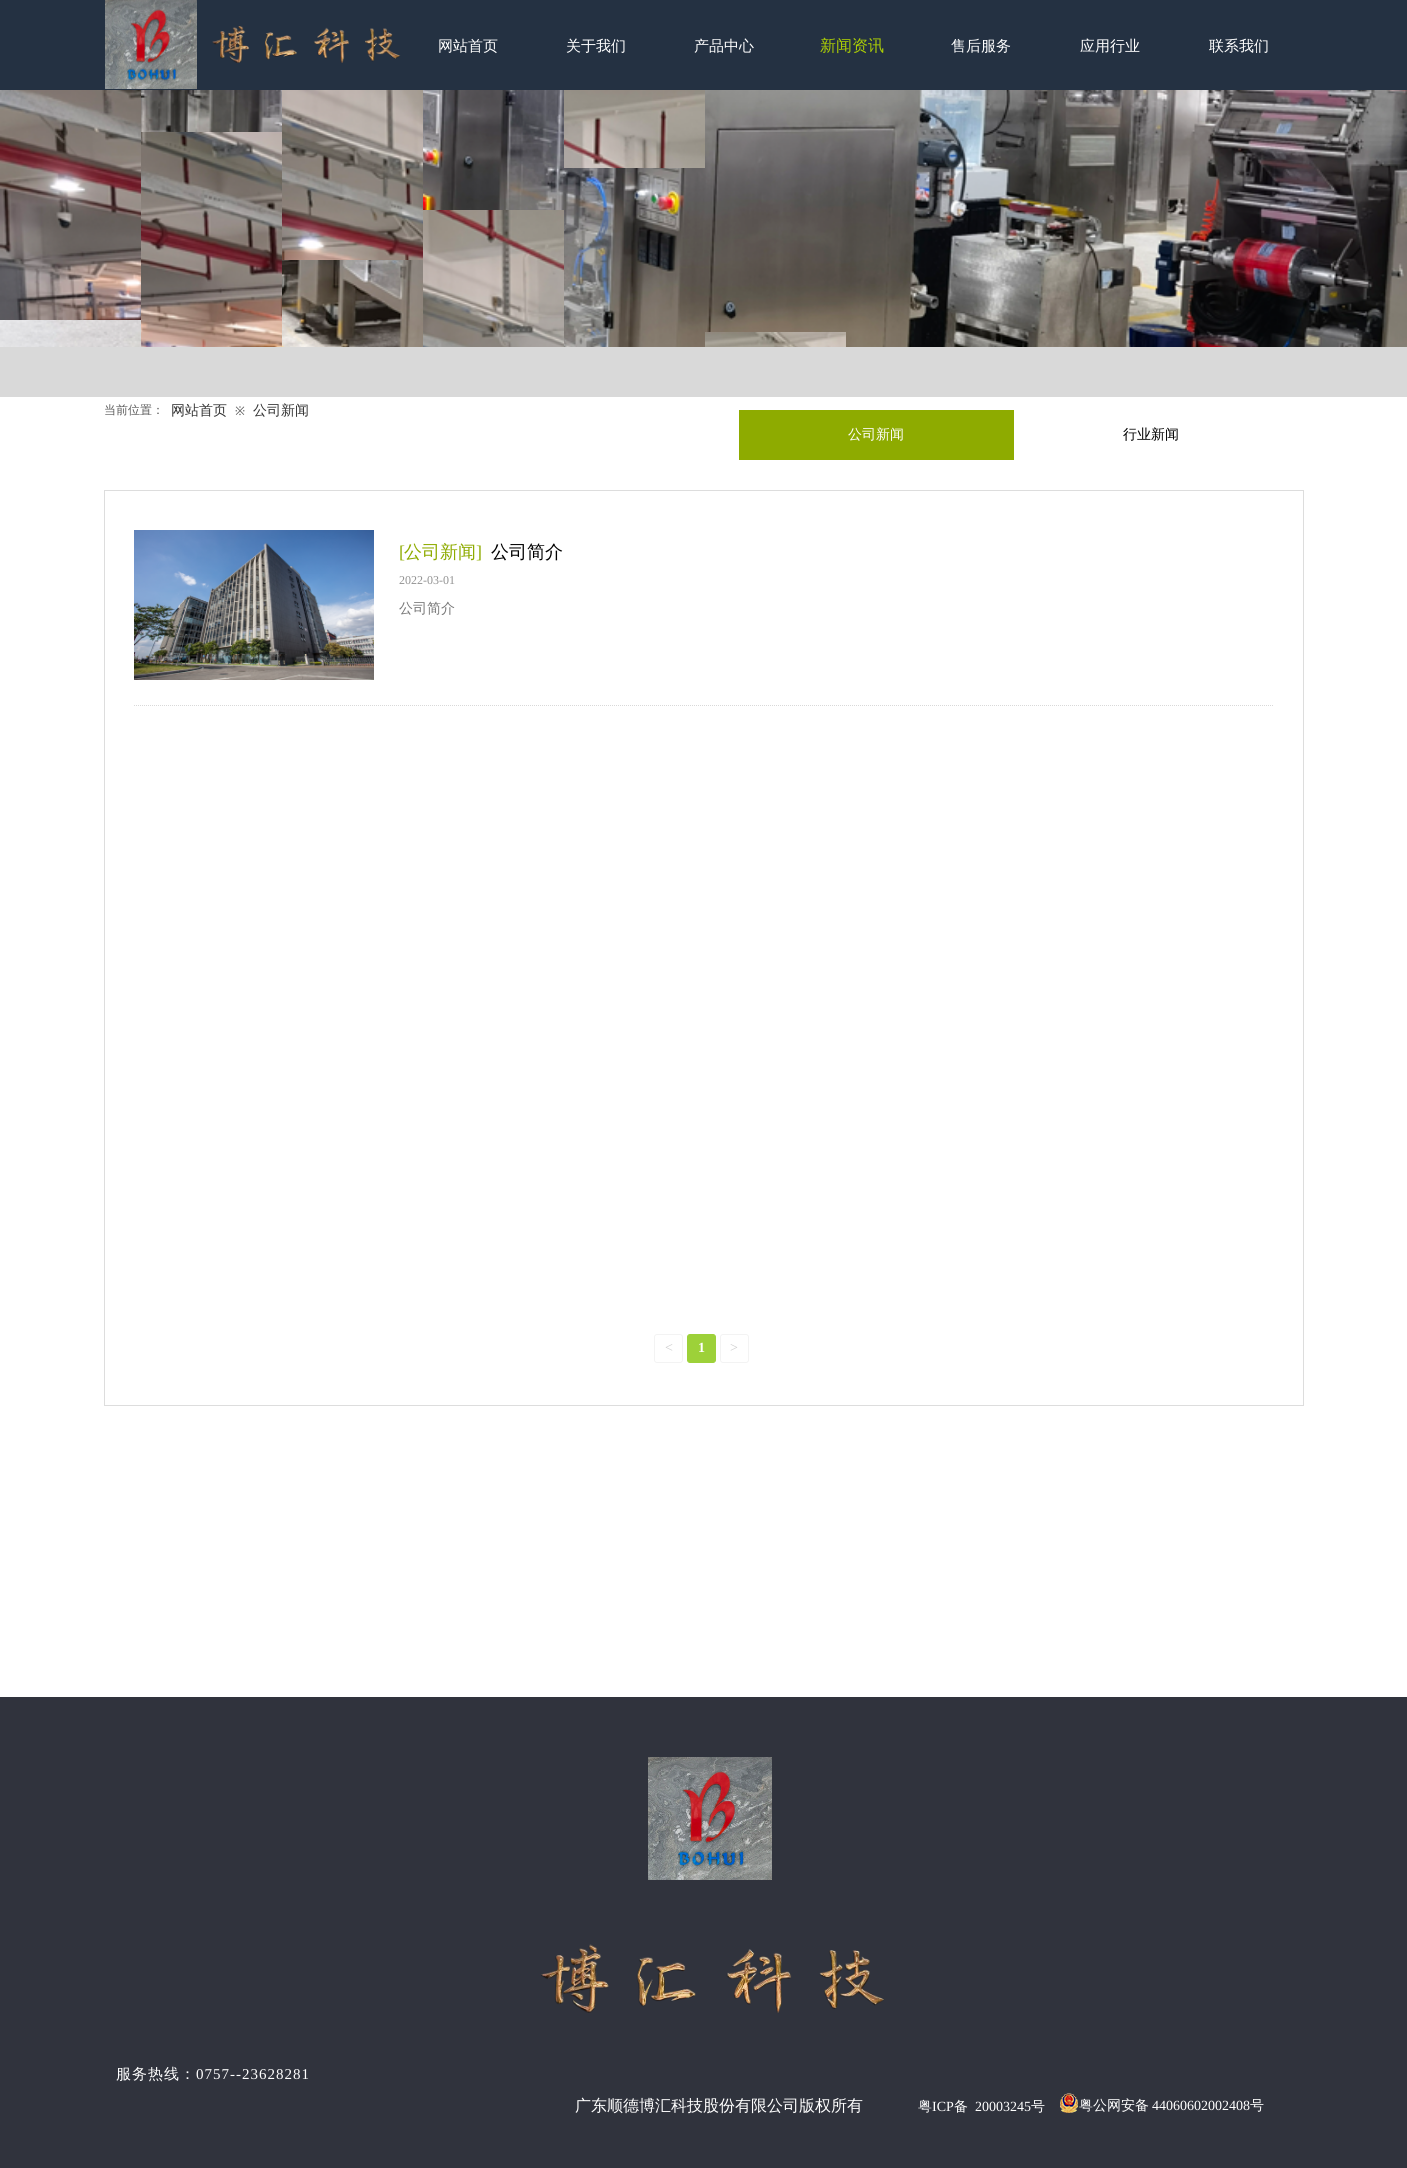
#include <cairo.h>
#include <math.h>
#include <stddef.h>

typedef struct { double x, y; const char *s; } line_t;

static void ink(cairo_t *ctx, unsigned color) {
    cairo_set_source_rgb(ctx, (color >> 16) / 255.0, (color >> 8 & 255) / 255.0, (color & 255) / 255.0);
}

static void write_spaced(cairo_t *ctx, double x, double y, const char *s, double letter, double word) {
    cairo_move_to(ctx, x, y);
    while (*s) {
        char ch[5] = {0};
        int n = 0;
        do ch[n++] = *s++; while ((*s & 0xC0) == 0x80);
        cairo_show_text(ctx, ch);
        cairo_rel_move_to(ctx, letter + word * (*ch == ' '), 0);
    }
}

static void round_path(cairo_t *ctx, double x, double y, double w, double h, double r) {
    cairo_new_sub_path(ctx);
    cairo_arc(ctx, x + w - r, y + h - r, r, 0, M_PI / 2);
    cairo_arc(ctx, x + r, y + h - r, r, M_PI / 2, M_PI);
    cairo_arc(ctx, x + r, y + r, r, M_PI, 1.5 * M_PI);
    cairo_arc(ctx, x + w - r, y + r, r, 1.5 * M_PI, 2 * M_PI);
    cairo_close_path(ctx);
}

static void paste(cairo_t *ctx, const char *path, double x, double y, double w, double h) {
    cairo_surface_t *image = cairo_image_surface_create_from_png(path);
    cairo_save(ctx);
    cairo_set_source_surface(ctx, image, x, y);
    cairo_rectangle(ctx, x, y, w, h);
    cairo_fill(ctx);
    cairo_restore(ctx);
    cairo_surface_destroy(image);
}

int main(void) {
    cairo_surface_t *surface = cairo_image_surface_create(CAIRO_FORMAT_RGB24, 1407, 2168);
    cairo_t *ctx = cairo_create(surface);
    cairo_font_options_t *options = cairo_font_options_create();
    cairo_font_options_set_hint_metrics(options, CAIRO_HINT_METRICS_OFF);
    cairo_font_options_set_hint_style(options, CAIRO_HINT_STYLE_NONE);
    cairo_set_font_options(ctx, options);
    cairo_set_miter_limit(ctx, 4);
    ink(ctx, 0xFFFFFF);
    cairo_paint(ctx);
    ink(ctx, 0x243142);
    cairo_rectangle(ctx, 0, 0, 1407, 90);
    cairo_fill(ctx);
    paste(ctx, "media/1.png", 105, 0, 92, 89);
    paste(ctx, "media/2.png", 212, 26, 189, 37);
    cairo_select_font_face(ctx, "WenQuanYi Zen Hei Medium", CAIRO_FONT_SLANT_NORMAL, CAIRO_FONT_WEIGHT_NORMAL);
    cairo_set_font_size(ctx, 15);
    ink(ctx, 0xFFFFFF);
    {
        static const line_t items[] = {
            {438, 51, "网站首页"},
            {566, 51, "关于我们"},
            {694, 51, "产品中心"},
        };
        for (size_t i = 0; i < sizeof items / sizeof *items; i++) {
            cairo_move_to(ctx, items[i].x, items[i].y);
            cairo_show_text(ctx, items[i].s);
        }
    }
    cairo_set_font_size(ctx, 16);
    ink(ctx, 0xABCD05);
    cairo_move_to(ctx, 820, 51);
    cairo_show_text(ctx, "新闻资讯");
    cairo_set_font_size(ctx, 15);
    ink(ctx, 0xFFFFFF);
    {
        static const line_t items[] = {
            {951, 51, "售后服务"},
            {1080, 51, "应用行业"},
            {1209, 51, "联系我们"},
        };
        for (size_t i = 0; i < sizeof items / sizeof *items; i++) {
            cairo_move_to(ctx, items[i].x, items[i].y);
            cairo_show_text(ctx, items[i].s);
        }
    }
    paste(ctx, "media/3.png", 0, 90, 1407, 257);
    paste(ctx, "media/4.png", 0, 90, 141, 230);
    paste(ctx, "media/5.png", 141, 132, 141, 215);
    paste(ctx, "media/6.png", 282, 90, 141, 170);
    paste(ctx, "media/7.png", 423, 210, 141, 137);
    paste(ctx, "media/8.png", 564, 90, 141, 78);
    paste(ctx, "media/9.png", 705, 332, 141, 15);
    ink(ctx, 0xD9D9D9);
    cairo_rectangle(ctx, 0, 347, 1407, 50);
    cairo_fill(ctx);
    cairo_set_font_size(ctx, 12);
    ink(ctx, 0x5A5A5A);
    cairo_move_to(ctx, 104, 414);
    cairo_show_text(ctx, "当前位置：");
    cairo_set_font_size(ctx, 14);
    ink(ctx, 0x333333);
    cairo_move_to(ctx, 171, 415);
    cairo_show_text(ctx, "网站首页");
    cairo_select_font_face(ctx, "Noto Sans", CAIRO_FONT_SLANT_NORMAL, CAIRO_FONT_WEIGHT_NORMAL);
    cairo_set_font_size(ctx, 12);
    ink(ctx, 0x5A5A5A);
    cairo_move_to(ctx, 235, 415);
    cairo_show_text(ctx, "※");
    cairo_select_font_face(ctx, "WenQuanYi Zen Hei Medium", CAIRO_FONT_SLANT_NORMAL, CAIRO_FONT_WEIGHT_NORMAL);
    cairo_set_font_size(ctx, 14);
    ink(ctx, 0x333333);
    cairo_move_to(ctx, 253, 415);
    cairo_show_text(ctx, "公司新闻");
    ink(ctx, 0x8EAB00);
    cairo_rectangle(ctx, 739, 410, 275, 50);
    cairo_fill(ctx);
    ink(ctx, 0xFFFFFF);
    cairo_move_to(ctx, 848, 439);
    cairo_show_text(ctx, "公司新闻");
    ink(ctx, 0x000000);
    cairo_move_to(ctx, 1123, 439);
    cairo_show_text(ctx, "行业新闻");
    cairo_rectangle(ctx, 104.5, 490.5, 1199, 915);
    ink(ctx, 0xDDDDDD);
    cairo_set_line_width(ctx, 1);
    cairo_stroke(ctx);
    cairo_save(ctx);
    cairo_rectangle(ctx, 134, 530, 1140, 201);
    cairo_clip(ctx);
    cairo_new_path(ctx);
    cairo_move_to(ctx, 134, 705.5);
    cairo_line_to(ctx, 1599, 705.5);
    ink(ctx, 0xD9D9D9);
    cairo_set_dash(ctx, (double[]){1, 1}, 2, 0);
    cairo_stroke(ctx);
    cairo_restore(ctx);
    paste(ctx, "media/10.png", 134, 530, 240, 150);
    cairo_select_font_face(ctx, "Liberation Serif", CAIRO_FONT_SLANT_NORMAL, CAIRO_FONT_WEIGHT_NORMAL);
    cairo_set_font_size(ctx, 18);
    ink(ctx, 0x8EAB00);
    cairo_move_to(ctx, 399, 558);
    cairo_show_text(ctx, "[");
    cairo_select_font_face(ctx, "WenQuanYi Zen Hei Medium", CAIRO_FONT_SLANT_NORMAL, CAIRO_FONT_WEIGHT_NORMAL);
    cairo_move_to(ctx, 404, 558);
    cairo_show_text(ctx, "公司新闻");
    cairo_select_font_face(ctx, "Liberation Serif", CAIRO_FONT_SLANT_NORMAL, CAIRO_FONT_WEIGHT_NORMAL);
    cairo_move_to(ctx, 476, 558);
    cairo_show_text(ctx, "]");
    cairo_select_font_face(ctx, "WenQuanYi Zen Hei Medium", CAIRO_FONT_SLANT_NORMAL, CAIRO_FONT_WEIGHT_NORMAL);
    ink(ctx, 0x000000);
    cairo_move_to(ctx, 491, 558);
    cairo_show_text(ctx, "公司简介");
    cairo_select_font_face(ctx, "Liberation Serif", CAIRO_FONT_SLANT_NORMAL, CAIRO_FONT_WEIGHT_NORMAL);
    cairo_set_font_size(ctx, 12);
    ink(ctx, 0x929292);
    cairo_move_to(ctx, 399, 584);
    cairo_show_text(ctx, "2022-03-01");
    cairo_select_font_face(ctx, "WenQuanYi Zen Hei Medium", CAIRO_FONT_SLANT_NORMAL, CAIRO_FONT_WEIGHT_NORMAL);
    cairo_set_font_size(ctx, 14);
    ink(ctx, 0x777777);
    cairo_move_to(ctx, 399, 613);
    cairo_show_text(ctx, "公司简介");
    round_path(ctx, 654.5, 1334.5, 28, 28, 2.5);
    ink(ctx, 0xF3F3F3);
    cairo_stroke(ctx);
    cairo_select_font_face(ctx, "Liberation Serif", CAIRO_FONT_SLANT_NORMAL, CAIRO_FONT_WEIGHT_NORMAL);
    ink(ctx, 0xCCCCCC);
    cairo_move_to(ctx, 665, 1352);
    cairo_show_text(ctx, "<");
    ink(ctx, 0x9DD139);
    round_path(ctx, 687.5, 1334.5, 28, 28, 2.5);
    cairo_fill_preserve(ctx);
    cairo_stroke(ctx);
    cairo_select_font_face(ctx, "Liberation Serif", CAIRO_FONT_SLANT_NORMAL, CAIRO_FONT_WEIGHT_BOLD);
    ink(ctx, 0xFFFFFF);
    cairo_move_to(ctx, 698, 1352);
    cairo_show_text(ctx, "1");
    round_path(ctx, 720.5, 1334.5, 28, 28, 2.5);
    ink(ctx, 0xF3F3F3);
    cairo_stroke(ctx);
    cairo_select_font_face(ctx, "Liberation Serif", CAIRO_FONT_SLANT_NORMAL, CAIRO_FONT_WEIGHT_NORMAL);
    ink(ctx, 0xCCCCCC);
    cairo_move_to(ctx, 730, 1352);
    cairo_show_text(ctx, ">");
    ink(ctx, 0x30333D);
    cairo_rectangle(ctx, 0, 1697, 1407, 471);
    cairo_fill(ctx);
    paste(ctx, "media/11.png", 648, 1757, 124, 123);
    paste(ctx, "media/12.png", 541, 1944, 343, 69);
    cairo_select_font_face(ctx, "WenQuanYi Zen Hei Medium", CAIRO_FONT_SLANT_NORMAL, CAIRO_FONT_WEIGHT_NORMAL);
    cairo_set_font_size(ctx, 15);
    ink(ctx, 0xFFFFFF);
    write_spaced(ctx, 116, 2079, "服务热线：", 1, 0);
    cairo_select_font_face(ctx, "Liberation Serif", CAIRO_FONT_SLANT_NORMAL, CAIRO_FONT_WEIGHT_NORMAL);
    write_spaced(ctx, 196, 2079, "0757--23628281", 1, 0);
    cairo_select_font_face(ctx, "WenQuanYi Zen Hei Medium", CAIRO_FONT_SLANT_NORMAL, CAIRO_FONT_WEIGHT_NORMAL);
    cairo_set_font_size(ctx, 16);
    cairo_move_to(ctx, 575, 2111);
    cairo_show_text(ctx, "广东顺德博汇科技股份有限公司版权所有");
    cairo_set_font_size(ctx, 14);
    cairo_move_to(ctx, 918, 2111);
    cairo_show_text(ctx, "粤");
    cairo_select_font_face(ctx, "Liberation Serif", CAIRO_FONT_SLANT_NORMAL, CAIRO_FONT_WEIGHT_NORMAL);
    cairo_move_to(ctx, 932, 2111);
    cairo_show_text(ctx, "ICP");
    cairo_select_font_face(ctx, "WenQuanYi Zen Hei Medium", CAIRO_FONT_SLANT_NORMAL, CAIRO_FONT_WEIGHT_NORMAL);
    cairo_move_to(ctx, 954, 2111);
    cairo_show_text(ctx, "备");
    cairo_select_font_face(ctx, "Liberation Serif", CAIRO_FONT_SLANT_NORMAL, CAIRO_FONT_WEIGHT_NORMAL);
    cairo_move_to(ctx, 975, 2111);
    cairo_show_text(ctx, "20003245");
    cairo_select_font_face(ctx, "WenQuanYi Zen Hei Medium", CAIRO_FONT_SLANT_NORMAL, CAIRO_FONT_WEIGHT_NORMAL);
    cairo_move_to(ctx, 1031, 2111);
    cairo_show_text(ctx, "号");
    paste(ctx, "media/13.png", 1060, 2093, 18, 20);
    cairo_move_to(ctx, 1079, 2110);
    cairo_show_text(ctx, "粤公网安备");
    cairo_select_font_face(ctx, "Liberation Serif", CAIRO_FONT_SLANT_NORMAL, CAIRO_FONT_WEIGHT_NORMAL);
    cairo_move_to(ctx, 1152, 2110);
    cairo_show_text(ctx, "44060602002408");
    cairo_select_font_face(ctx, "WenQuanYi Zen Hei Medium", CAIRO_FONT_SLANT_NORMAL, CAIRO_FONT_WEIGHT_NORMAL);
    cairo_move_to(ctx, 1250, 2110);
    cairo_show_text(ctx, "号");
    cairo_surface_write_to_png(surface, "image.png");
    cairo_font_options_destroy(options);
    cairo_destroy(ctx);
    cairo_surface_destroy(surface);
    return 0;
}
